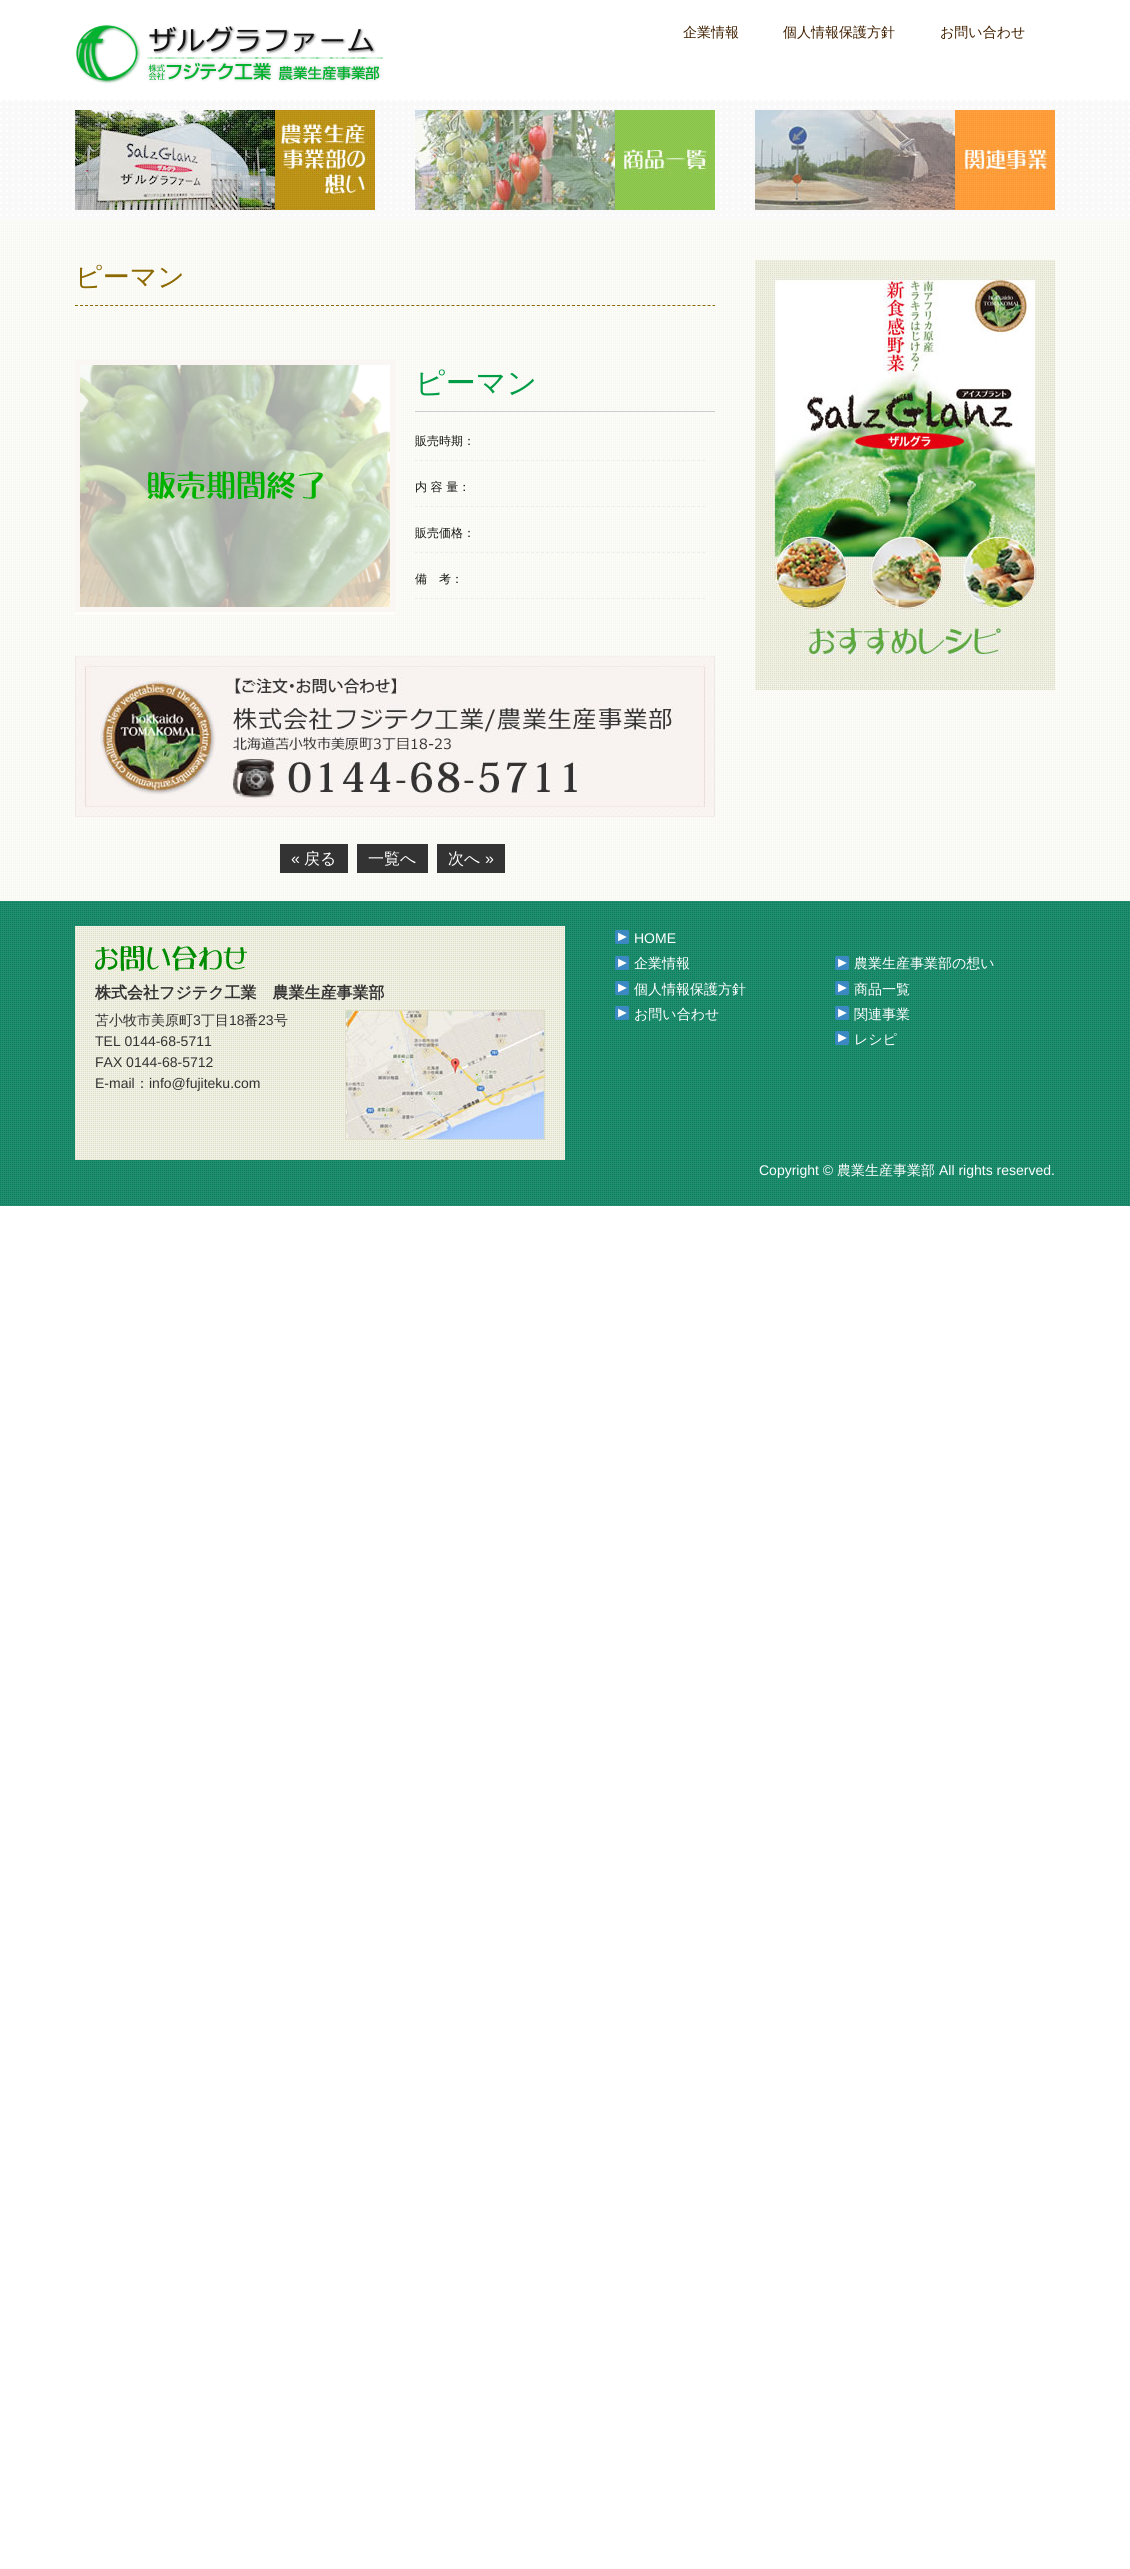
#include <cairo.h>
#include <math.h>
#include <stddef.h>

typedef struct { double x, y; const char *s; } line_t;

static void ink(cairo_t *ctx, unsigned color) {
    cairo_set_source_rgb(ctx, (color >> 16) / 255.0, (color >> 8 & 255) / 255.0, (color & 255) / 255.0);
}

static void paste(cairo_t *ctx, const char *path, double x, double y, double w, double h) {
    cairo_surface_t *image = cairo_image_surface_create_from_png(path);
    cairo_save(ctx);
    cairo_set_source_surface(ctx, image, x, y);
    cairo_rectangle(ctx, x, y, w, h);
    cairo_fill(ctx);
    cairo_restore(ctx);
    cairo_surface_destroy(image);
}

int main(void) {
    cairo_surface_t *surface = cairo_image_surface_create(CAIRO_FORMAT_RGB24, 1130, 2569);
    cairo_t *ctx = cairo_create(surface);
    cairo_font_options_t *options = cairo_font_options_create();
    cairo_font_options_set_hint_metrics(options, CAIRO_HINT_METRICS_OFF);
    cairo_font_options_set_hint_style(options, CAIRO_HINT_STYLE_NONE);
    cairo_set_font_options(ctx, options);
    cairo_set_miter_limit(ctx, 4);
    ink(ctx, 0xFFFFFF);
    cairo_paint(ctx);
    paste(ctx, "media/1.png", 0, 220, 1130, 681);
    paste(ctx, "media/2.png", 75, 24, 308, 60);
    cairo_select_font_face(ctx, "WenQuanYi Zen Hei Medium", CAIRO_FONT_SLANT_NORMAL, CAIRO_FONT_WEIGHT_NORMAL);
    cairo_set_font_size(ctx, 14);
    ink(ctx, 0x402000);
    {
        static const line_t items[] = {
            {683, 37, "企業情報"},
            {783, 37, "個人情報保護方針"},
            {940, 37, "お問い合わせ"},
        };
        for (size_t i = 0; i < sizeof items / sizeof *items; i++) {
            cairo_move_to(ctx, items[i].x, items[i].y);
            cairo_show_text(ctx, items[i].s);
        }
    }
    paste(ctx, "media/3.png", 0, 100, 1130, 120);
    paste(ctx, "media/4.png", 75, 110, 300, 100);
    paste(ctx, "media/5.png", 415, 110, 300, 100);
    paste(ctx, "media/6.png", 755, 110, 300, 100);
    cairo_new_path(ctx);
    cairo_move_to(ctx, 75, 305.5);
    cairo_line_to(ctx, 715, 305.5);
    ink(ctx, 0x8C6800);
    cairo_set_line_width(ctx, 1);
    cairo_set_dash(ctx, (double[]){3, 2.02}, 2, 0);
    cairo_stroke(ctx);
    cairo_set_font_size(ctx, 27);
    cairo_move_to(ctx, 75, 286);
    cairo_show_text(ctx, "ピーマン");
    cairo_rectangle(ctx, 77.5, 362.5, 315, 247);
    ink(ctx, 0xEDE4DF);
    cairo_set_line_width(ctx, 5);
    cairo_set_dash(ctx, NULL, 0, 0);
    cairo_stroke(ctx);
    paste(ctx, "media/7.png", 80, 365, 310, 242);
    cairo_set_source_rgba(ctx, 1, 1, 1, 0.65);
    cairo_rectangle(ctx, 75, 360, 320, 255);
    cairo_fill(ctx);
    paste(ctx, "media/8.png", 147, 471, 176, 28);
    ink(ctx, 0xCCCCCC);
    cairo_rectangle(ctx, 415, 411, 300, 1);
    cairo_fill(ctx);
    cairo_set_font_size(ctx, 30);
    ink(ctx, 0x009D46);
    cairo_move_to(ctx, 415, 393);
    cairo_show_text(ctx, "ピーマン");
    cairo_new_path(ctx);
    cairo_move_to(ctx, 415, 460.5);
    cairo_line_to(ctx, 705, 460.5);
    ink(ctx, 0xEEEEEE);
    cairo_set_line_width(ctx, 1);
    cairo_set_dash(ctx, (double[]){3, 2.04}, 2, 0);
    cairo_stroke(ctx);
    cairo_set_font_size(ctx, 12);
    ink(ctx, 0x141412);
    cairo_move_to(ctx, 415, 445);
    cairo_show_text(ctx, "販売時期：");
    cairo_new_path(ctx);
    cairo_move_to(ctx, 415, 506.5);
    cairo_line_to(ctx, 705, 506.5);
    ink(ctx, 0xEEEEEE);
    cairo_stroke(ctx);
    ink(ctx, 0x141412);
    cairo_move_to(ctx, 415, 491);
    cairo_show_text(ctx, "内 容 量：");
    cairo_new_path(ctx);
    cairo_move_to(ctx, 415, 552.5);
    cairo_line_to(ctx, 705, 552.5);
    ink(ctx, 0xEEEEEE);
    cairo_stroke(ctx);
    ink(ctx, 0x141412);
    cairo_move_to(ctx, 415, 537);
    cairo_show_text(ctx, "販売価格：");
    cairo_new_path(ctx);
    cairo_move_to(ctx, 415, 598.5);
    cairo_line_to(ctx, 705, 598.5);
    ink(ctx, 0xEEEEEE);
    cairo_stroke(ctx);
    ink(ctx, 0x141412);
    cairo_move_to(ctx, 415, 583);
    cairo_show_text(ctx, "備　考：");
    paste(ctx, "media/9.png", 75, 656, 640, 161);
    ink(ctx, 0x333333);
    cairo_rectangle(ctx, 280, 844, 68, 29);
    cairo_fill(ctx);
    cairo_select_font_face(ctx, "Liberation Sans", CAIRO_FONT_SLANT_NORMAL, CAIRO_FONT_WEIGHT_NORMAL);
    cairo_set_font_size(ctx, 16);
    ink(ctx, 0xFFFFFF);
    cairo_move_to(ctx, 291, 864);
    cairo_show_text(ctx, "«");
    cairo_select_font_face(ctx, "WenQuanYi Zen Hei Medium", CAIRO_FONT_SLANT_NORMAL, CAIRO_FONT_WEIGHT_NORMAL);
    cairo_move_to(ctx, 304, 864);
    cairo_show_text(ctx, "戻る");
    ink(ctx, 0x333333);
    cairo_rectangle(ctx, 357, 844, 71, 29);
    cairo_fill(ctx);
    ink(ctx, 0xFFFFFF);
    cairo_move_to(ctx, 368, 864);
    cairo_show_text(ctx, "一覧へ");
    ink(ctx, 0x333333);
    cairo_rectangle(ctx, 437, 844, 68, 29);
    cairo_fill(ctx);
    ink(ctx, 0xFFFFFF);
    cairo_move_to(ctx, 448, 864);
    cairo_show_text(ctx, "次へ");
    cairo_select_font_face(ctx, "Liberation Sans", CAIRO_FONT_SLANT_NORMAL, CAIRO_FONT_WEIGHT_NORMAL);
    cairo_move_to(ctx, 485, 864);
    cairo_show_text(ctx, "»");
    paste(ctx, "media/10.png", 755, 260, 300, 430);
    paste(ctx, "media/11.png", 0, 901, 1130, 305);
    paste(ctx, "media/12.png", 75, 926, 490, 234);
    paste(ctx, "media/13.png", 95, 946, 152, 25);
    cairo_select_font_face(ctx, "WenQuanYi Zen Hei", CAIRO_FONT_SLANT_NORMAL, CAIRO_FONT_WEIGHT_BOLD);
    ink(ctx, 0x333333);
    cairo_move_to(ctx, 95, 998);
    cairo_show_text(ctx, "株式会社フジテク工業　農業生産事業部");
    cairo_select_font_face(ctx, "WenQuanYi Zen Hei Medium", CAIRO_FONT_SLANT_NORMAL, CAIRO_FONT_WEIGHT_NORMAL);
    cairo_set_font_size(ctx, 14);
    cairo_move_to(ctx, 95, 1025);
    cairo_show_text(ctx, "苫小牧市美原町");
    cairo_select_font_face(ctx, "Liberation Sans", CAIRO_FONT_SLANT_NORMAL, CAIRO_FONT_WEIGHT_NORMAL);
    cairo_move_to(ctx, 193, 1025);
    cairo_show_text(ctx, "3");
    cairo_select_font_face(ctx, "WenQuanYi Zen Hei Medium", CAIRO_FONT_SLANT_NORMAL, CAIRO_FONT_WEIGHT_NORMAL);
    cairo_move_to(ctx, 201, 1025);
    cairo_show_text(ctx, "丁目");
    cairo_select_font_face(ctx, "Liberation Sans", CAIRO_FONT_SLANT_NORMAL, CAIRO_FONT_WEIGHT_NORMAL);
    cairo_move_to(ctx, 229, 1025);
    cairo_show_text(ctx, "18");
    cairo_select_font_face(ctx, "WenQuanYi Zen Hei Medium", CAIRO_FONT_SLANT_NORMAL, CAIRO_FONT_WEIGHT_NORMAL);
    cairo_move_to(ctx, 244, 1025);
    cairo_show_text(ctx, "番");
    cairo_select_font_face(ctx, "Liberation Sans", CAIRO_FONT_SLANT_NORMAL, CAIRO_FONT_WEIGHT_NORMAL);
    cairo_move_to(ctx, 258, 1025);
    cairo_show_text(ctx, "23");
    cairo_select_font_face(ctx, "WenQuanYi Zen Hei Medium", CAIRO_FONT_SLANT_NORMAL, CAIRO_FONT_WEIGHT_NORMAL);
    cairo_move_to(ctx, 274, 1025);
    cairo_show_text(ctx, "号");
    cairo_select_font_face(ctx, "Liberation Sans", CAIRO_FONT_SLANT_NORMAL, CAIRO_FONT_WEIGHT_NORMAL);
    {
        static const line_t items[] = {
            {95, 1046, "TEL 0144-68-5711"},
            {95, 1067, "FAX 0144-68-5712"},
            {95, 1088, "E-mail"},
        };
        for (size_t i = 0; i < sizeof items / sizeof *items; i++) {
            cairo_move_to(ctx, items[i].x, items[i].y);
            cairo_show_text(ctx, items[i].s);
        }
    }
    cairo_select_font_face(ctx, "WenQuanYi Zen Hei Medium", CAIRO_FONT_SLANT_NORMAL, CAIRO_FONT_WEIGHT_NORMAL);
    cairo_move_to(ctx, 135, 1088);
    cairo_show_text(ctx, "：");
    cairo_select_font_face(ctx, "Liberation Sans", CAIRO_FONT_SLANT_NORMAL, CAIRO_FONT_WEIGHT_NORMAL);
    cairo_move_to(ctx, 149, 1088);
    cairo_show_text(ctx, "info@fujiteku.com");
    paste(ctx, "media/14.png", 345, 1010, 200, 130);
    paste(ctx, "media/15.png", 615, 930, 14, 14);
    ink(ctx, 0xFFFFFF);
    cairo_move_to(ctx, 634, 943);
    cairo_show_text(ctx, "HOME");
    paste(ctx, "media/15.png", 615, 956, 14, 14);
    cairo_select_font_face(ctx, "WenQuanYi Zen Hei Medium", CAIRO_FONT_SLANT_NORMAL, CAIRO_FONT_WEIGHT_NORMAL);
    cairo_move_to(ctx, 634, 968);
    cairo_show_text(ctx, "企業情報");
    paste(ctx, "media/16.png", 615, 981, 14, 14);
    cairo_move_to(ctx, 634, 994);
    cairo_show_text(ctx, "個人情報保護方針");
    paste(ctx, "media/15.png", 615, 1006, 14, 14);
    cairo_move_to(ctx, 634, 1019);
    cairo_show_text(ctx, "お問い合わせ");
    paste(ctx, "media/15.png", 835, 956, 14, 14);
    cairo_move_to(ctx, 854, 968);
    cairo_show_text(ctx, "農業生産事業部の想い");
    paste(ctx, "media/16.png", 835, 981, 14, 14);
    cairo_move_to(ctx, 854, 994);
    cairo_show_text(ctx, "商品一覧");
    paste(ctx, "media/15.png", 835, 1006, 14, 14);
    cairo_move_to(ctx, 854, 1019);
    cairo_show_text(ctx, "関連事業");
    paste(ctx, "media/16.png", 835, 1031, 14, 14);
    cairo_move_to(ctx, 854, 1044);
    cairo_show_text(ctx, "レシピ");
    cairo_select_font_face(ctx, "Liberation Sans", CAIRO_FONT_SLANT_NORMAL, CAIRO_FONT_WEIGHT_NORMAL);
    cairo_move_to(ctx, 759, 1175);
    cairo_show_text(ctx, "Copyright ©");
    cairo_select_font_face(ctx, "WenQuanYi Zen Hei Medium", CAIRO_FONT_SLANT_NORMAL, CAIRO_FONT_WEIGHT_NORMAL);
    cairo_move_to(ctx, 837, 1175);
    cairo_show_text(ctx, "農業生産事業部");
    cairo_select_font_face(ctx, "Liberation Sans", CAIRO_FONT_SLANT_NORMAL, CAIRO_FONT_WEIGHT_NORMAL);
    cairo_move_to(ctx, 939, 1175);
    cairo_show_text(ctx, "All rights reserved.");
    cairo_surface_write_to_png(surface, "image.png");
    cairo_font_options_destroy(options);
    cairo_destroy(ctx);
    cairo_surface_destroy(surface);
    return 0;
}
